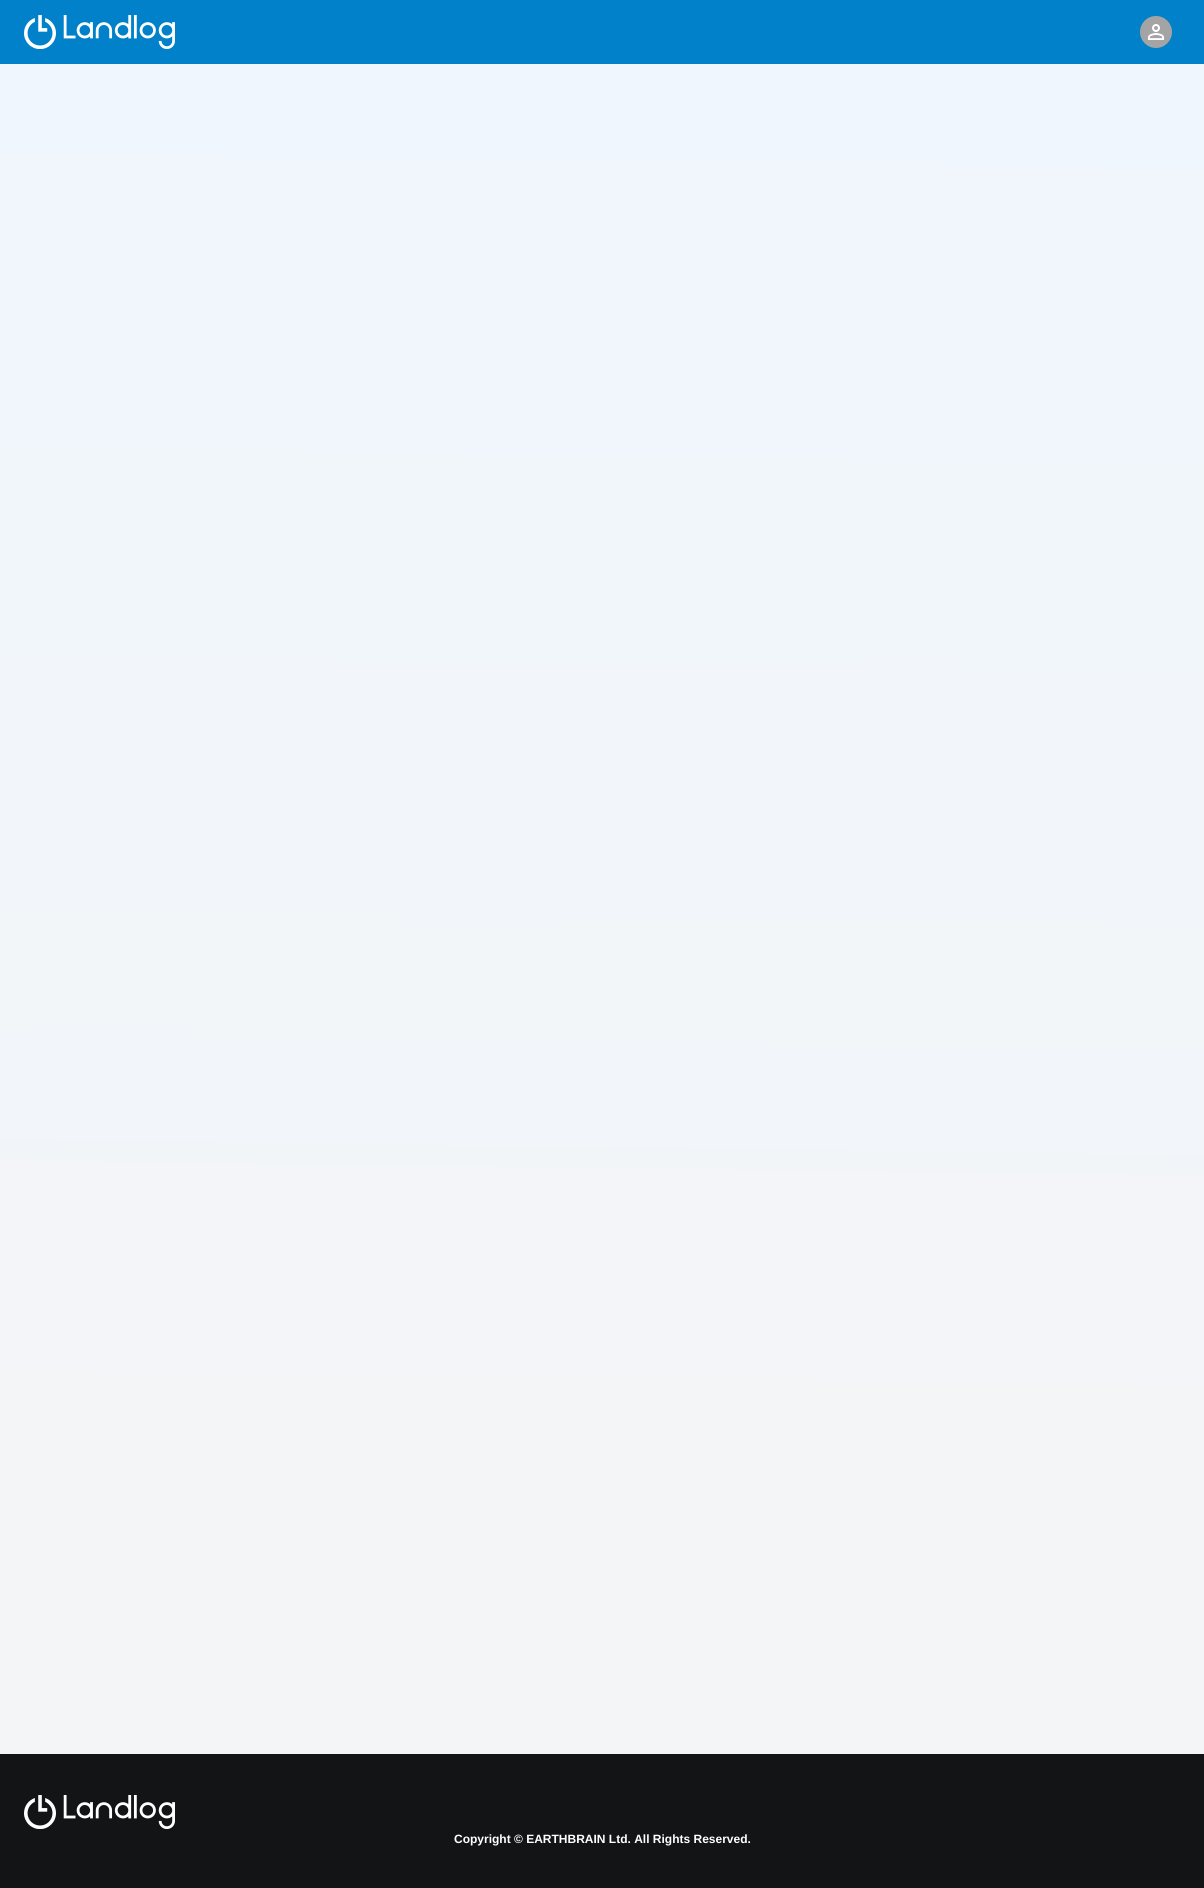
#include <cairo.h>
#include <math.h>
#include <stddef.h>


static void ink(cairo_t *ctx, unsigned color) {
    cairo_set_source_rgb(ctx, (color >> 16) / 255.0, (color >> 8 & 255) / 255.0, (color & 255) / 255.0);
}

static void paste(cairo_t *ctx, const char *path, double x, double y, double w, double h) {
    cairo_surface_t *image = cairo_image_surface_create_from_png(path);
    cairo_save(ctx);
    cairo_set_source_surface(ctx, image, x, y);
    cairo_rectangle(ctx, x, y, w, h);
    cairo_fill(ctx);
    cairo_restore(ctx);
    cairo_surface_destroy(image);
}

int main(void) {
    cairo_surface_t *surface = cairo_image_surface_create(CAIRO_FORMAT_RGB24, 1204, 1888);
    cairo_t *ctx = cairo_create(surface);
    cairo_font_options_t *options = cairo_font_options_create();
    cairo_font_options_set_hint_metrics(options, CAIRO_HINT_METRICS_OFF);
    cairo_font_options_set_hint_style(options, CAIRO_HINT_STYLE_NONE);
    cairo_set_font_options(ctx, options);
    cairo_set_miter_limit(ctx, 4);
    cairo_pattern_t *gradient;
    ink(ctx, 0xFFFFFF);
    cairo_paint(ctx);
    gradient = cairo_pattern_create_linear(615, -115, 589, 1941);
    cairo_pattern_add_color_stop_rgba(gradient, 0, 0.941, 0.965, 0.996, 1);
    cairo_pattern_add_color_stop_rgba(gradient, 1, 0.957, 0.961, 0.961, 1);
    cairo_set_source(ctx, gradient);
    cairo_pattern_destroy(gradient);
    cairo_rectangle(ctx, 0, 64, 1204, 1690);
    cairo_fill(ctx);
    ink(ctx, 0x0081CA);
    cairo_rectangle(ctx, 0, 0, 1204, 64);
    cairo_fill(ctx);
    paste(ctx, "media/1.png", 24, 15, 151, 34);
    ink(ctx, 0xA4A4A4);
    cairo_arc(ctx, 1156, 32, 16, 0, 2 * M_PI);
    cairo_fill(ctx);
    paste(ctx, "media/2.png", 1148, 24, 16, 16);
    ink(ctx, 0x131416);
    cairo_rectangle(ctx, 0, 1754, 1204, 134);
    cairo_fill(ctx);
    paste(ctx, "media/3.png", 24, 1795, 151, 34);
    cairo_select_font_face(ctx, "Liberation Sans", CAIRO_FONT_SLANT_NORMAL, CAIRO_FONT_WEIGHT_BOLD);
    cairo_set_font_size(ctx, 12);
    ink(ctx, 0xFFFFFF);
    cairo_move_to(ctx, 454, 1843);
    cairo_show_text(ctx, "Copyright © EARTHBRAIN Ltd. All Rights Reserved.");
    cairo_surface_write_to_png(surface, "image.png");
    cairo_font_options_destroy(options);
    cairo_destroy(ctx);
    cairo_surface_destroy(surface);
    return 0;
}
